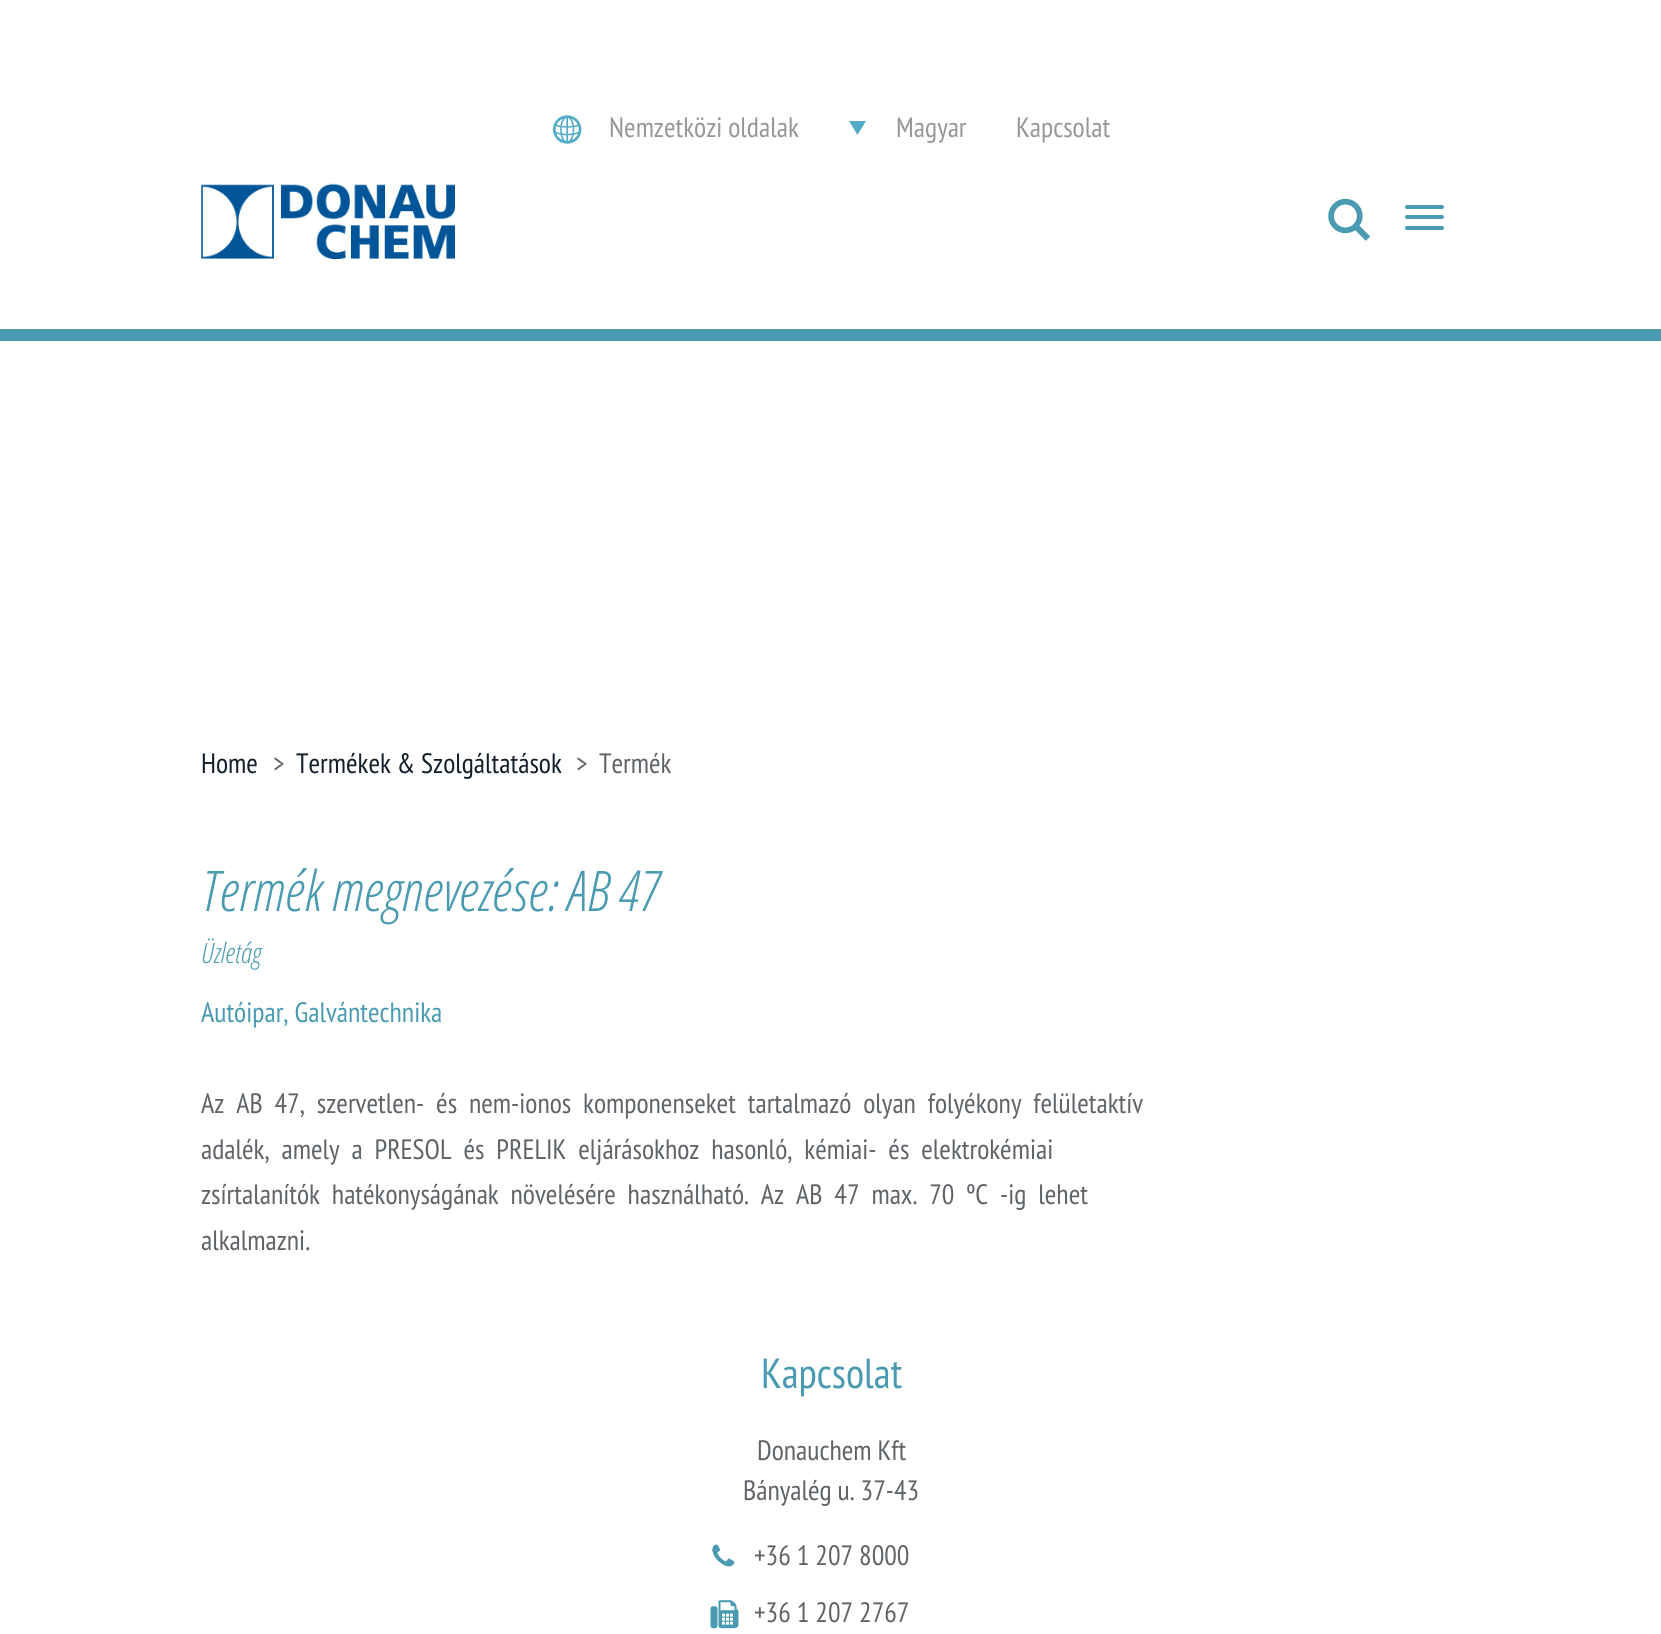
#include <cairo.h>
#include <math.h>
#include <stddef.h>

typedef struct { double x, y; const char *s; } line_t;

static void ink(cairo_t *ctx, unsigned color) {
    cairo_set_source_rgb(ctx, (color >> 16) / 255.0, (color >> 8 & 255) / 255.0, (color & 255) / 255.0);
}

static void round_path(cairo_t *ctx, double x, double y, double w, double h, double r) {
    cairo_new_sub_path(ctx);
    cairo_arc(ctx, x + w - r, y + h - r, r, 0, M_PI / 2);
    cairo_arc(ctx, x + r, y + h - r, r, M_PI / 2, M_PI);
    cairo_arc(ctx, x + r, y + r, r, M_PI, 1.5 * M_PI);
    cairo_arc(ctx, x + w - r, y + r, r, 1.5 * M_PI, 2 * M_PI);
    cairo_close_path(ctx);
}

static void paste(cairo_t *ctx, const char *path, double x, double y, double w, double h) {
    cairo_surface_t *image = cairo_image_surface_create_from_png(path);
    cairo_save(ctx);
    cairo_set_source_surface(ctx, image, x, y);
    cairo_rectangle(ctx, x, y, w, h);
    cairo_fill(ctx);
    cairo_restore(ctx);
    cairo_surface_destroy(image);
}

int main(void) {
    cairo_surface_t *surface = cairo_image_surface_create(CAIRO_FORMAT_RGB24, 1661, 1634);
    cairo_t *ctx = cairo_create(surface);
    cairo_font_options_t *options = cairo_font_options_create();
    cairo_font_options_set_hint_metrics(options, CAIRO_HINT_METRICS_OFF);
    cairo_font_options_set_hint_style(options, CAIRO_HINT_STYLE_NONE);
    cairo_set_font_options(ctx, options);
    cairo_set_miter_limit(ctx, 4);
    ink(ctx, 0xFFFFFF);
    cairo_paint(ctx);
    ink(ctx, 0x4A9BB1);
    cairo_rectangle(ctx, 0, 329, 1661, 12);
    cairo_fill(ctx);
    paste(ctx, "media/1.png", 553, 115, 29, 29);
    cairo_select_font_face(ctx, "PT Sans Narrow", CAIRO_FONT_SLANT_NORMAL, CAIRO_FONT_WEIGHT_NORMAL);
    cairo_set_font_size(ctx, 28);
    ink(ctx, 0x979797);
    cairo_move_to(ctx, 609, 137);
    cairo_show_text(ctx, "Nemzetközi oldalak");
    ink(ctx, 0x53ABC5);
    cairo_new_path(ctx);
    cairo_move_to(ctx, 849, 121);
    cairo_line_to(ctx, 866, 121);
    cairo_line_to(ctx, 857.5, 135);
    cairo_close_path(ctx);
    cairo_fill(ctx);
    ink(ctx, 0x979797);
    cairo_move_to(ctx, 896, 137);
    cairo_show_text(ctx, "Magyar");
    cairo_move_to(ctx, 1016, 137);
    cairo_show_text(ctx, "Kapcsolat");
    paste(ctx, "media/2.png", 201, 183, 254, 76);
    paste(ctx, "media/3.png", 1328, 198, 43, 43);
    ink(ctx, 0x4A9BB1);
    round_path(ctx, 1405, 205, 39, 4, 2);
    cairo_fill(ctx);
    round_path(ctx, 1405, 215, 39, 4, 2);
    cairo_fill(ctx);
    round_path(ctx, 1405, 226, 39, 4, 2);
    cairo_fill(ctx);
    ink(ctx, 0x141F2C);
    cairo_move_to(ctx, 201, 773);
    cairo_show_text(ctx, "Home");
    ink(ctx, 0x5F6469);
    cairo_move_to(ctx, 273, 773);
    cairo_show_text(ctx, ">");
    ink(ctx, 0x141F2C);
    cairo_move_to(ctx, 296, 773);
    cairo_show_text(ctx, "Termékek & Szolgáltatások");
    ink(ctx, 0x5F6469);
    cairo_move_to(ctx, 576, 773);
    cairo_show_text(ctx, ">");
    cairo_move_to(ctx, 599, 773);
    cairo_show_text(ctx, "Termék");
    cairo_select_font_face(ctx, "Open Sans Condensed Light", CAIRO_FONT_SLANT_ITALIC, CAIRO_FONT_WEIGHT_NORMAL);
    cairo_set_font_size(ctx, 56);
    ink(ctx, 0x4A9BB1);
    cairo_move_to(ctx, 201, 911);
    cairo_show_text(ctx, "Termék megnevezése: AB 47");
    cairo_set_font_size(ctx, 28);
    cairo_move_to(ctx, 201, 963);
    cairo_show_text(ctx, "Üzletág");
    cairo_select_font_face(ctx, "PT Sans Narrow", CAIRO_FONT_SLANT_NORMAL, CAIRO_FONT_WEIGHT_NORMAL);
    cairo_move_to(ctx, 201, 1022);
    cairo_show_text(ctx, "Autóipar, Galvántechnika");
    ink(ctx, 0x5F6469);
    {
        static const line_t items[] = {
            {201, 1113, "Az  AB  47,  szervetlen-  és  nem-ionos  komponenseket  tartalmazó  olyan  folyékony  felületaktív"},
            {201, 1159, "adalék,  amely  a  PRESOL  és  PRELIK  eljárásokhoz  hasonló,  kémiai-  és  elektrokémiai"},
            {201, 1204, "zsírtalanítók  hatékonyságának  növelésére  használható.  Az  AB  47  max.  70  ºC  -ig  lehet"},
            {201, 1250, "alkalmazni."},
        };
        for (size_t i = 0; i < sizeof items / sizeof *items; i++) {
            cairo_move_to(ctx, items[i].x, items[i].y);
            cairo_show_text(ctx, items[i].s);
        }
    }
    cairo_set_font_size(ctx, 42);
    ink(ctx, 0x4A9BB1);
    cairo_move_to(ctx, 761, 1388);
    cairo_show_text(ctx, "Kapcsolat");
    cairo_set_font_size(ctx, 28);
    ink(ctx, 0x5F6469);
    cairo_move_to(ctx, 757, 1460);
    cairo_show_text(ctx, "Donauchem Kft");
    cairo_move_to(ctx, 743, 1500);
    cairo_show_text(ctx, "Bányalég u. 37-43");
    paste(ctx, "media/4.png", 712, 1544, 23, 23);
    cairo_move_to(ctx, 754, 1565);
    cairo_show_text(ctx, "+36 1 207 8000");
    paste(ctx, "media/5.png", 710, 1600, 29, 29);
    cairo_move_to(ctx, 754, 1622);
    cairo_show_text(ctx, "+36 1 207 2767");
    cairo_surface_write_to_png(surface, "image.png");
    cairo_font_options_destroy(options);
    cairo_destroy(ctx);
    cairo_surface_destroy(surface);
    return 0;
}
